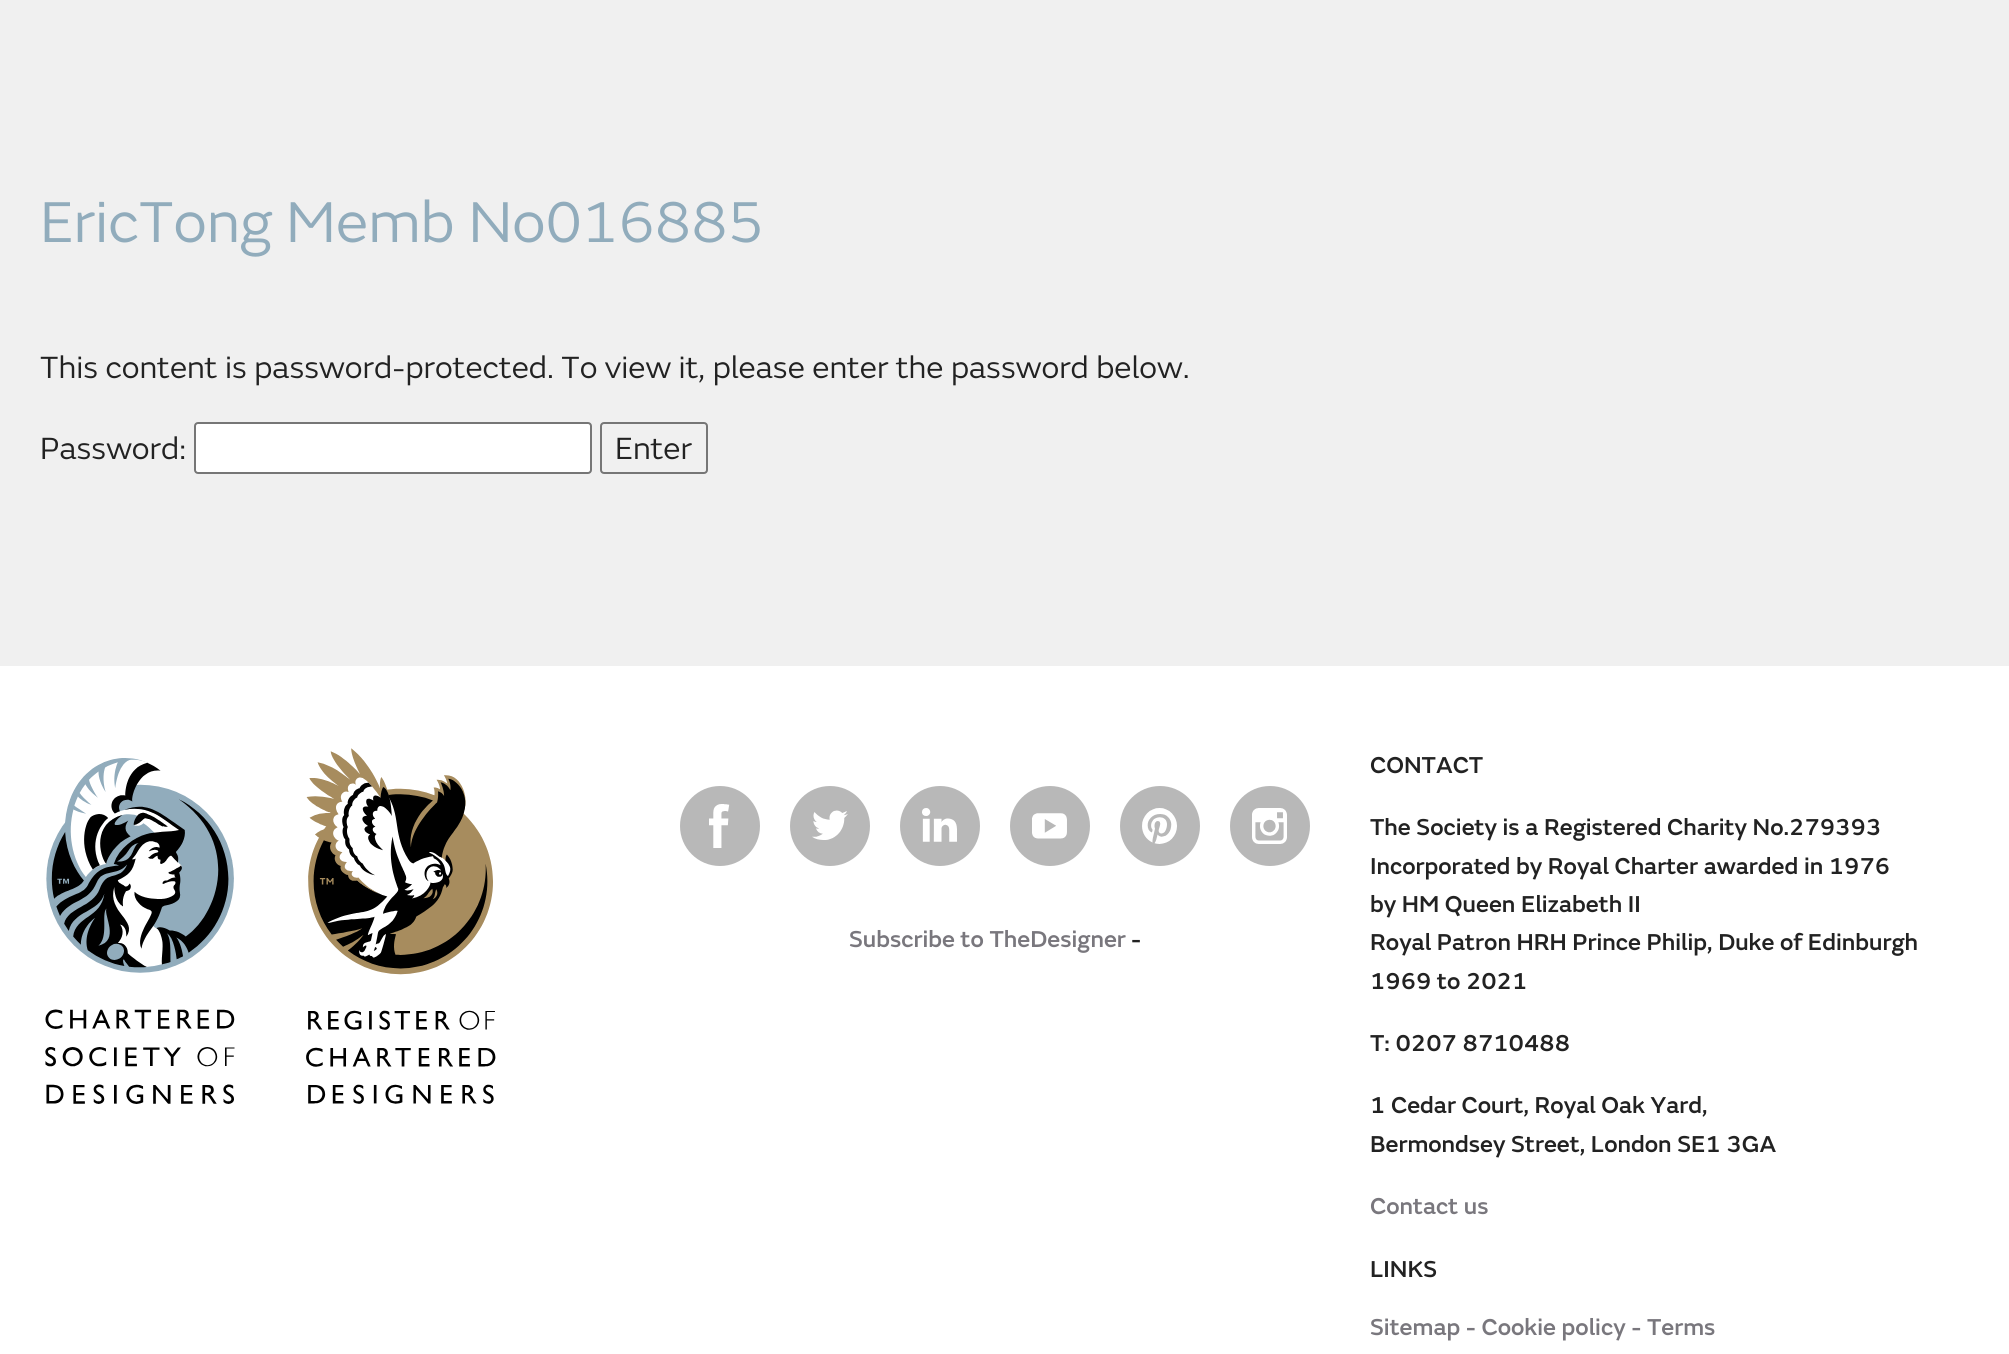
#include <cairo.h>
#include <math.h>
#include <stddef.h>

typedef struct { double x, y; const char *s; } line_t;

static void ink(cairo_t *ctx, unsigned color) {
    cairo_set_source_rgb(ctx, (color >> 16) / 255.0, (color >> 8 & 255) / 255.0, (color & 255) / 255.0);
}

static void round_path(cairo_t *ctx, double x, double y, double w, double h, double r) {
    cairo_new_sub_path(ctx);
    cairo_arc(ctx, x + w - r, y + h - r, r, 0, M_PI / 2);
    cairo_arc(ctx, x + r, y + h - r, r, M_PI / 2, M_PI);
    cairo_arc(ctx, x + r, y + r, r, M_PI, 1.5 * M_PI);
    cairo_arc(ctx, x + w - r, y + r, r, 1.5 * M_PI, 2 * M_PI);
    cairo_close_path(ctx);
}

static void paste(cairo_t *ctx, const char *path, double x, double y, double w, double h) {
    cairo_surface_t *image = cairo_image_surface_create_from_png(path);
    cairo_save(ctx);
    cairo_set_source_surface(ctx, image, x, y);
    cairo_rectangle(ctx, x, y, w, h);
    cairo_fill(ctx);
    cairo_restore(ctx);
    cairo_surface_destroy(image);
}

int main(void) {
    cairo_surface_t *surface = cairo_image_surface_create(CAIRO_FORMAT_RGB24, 2009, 1354);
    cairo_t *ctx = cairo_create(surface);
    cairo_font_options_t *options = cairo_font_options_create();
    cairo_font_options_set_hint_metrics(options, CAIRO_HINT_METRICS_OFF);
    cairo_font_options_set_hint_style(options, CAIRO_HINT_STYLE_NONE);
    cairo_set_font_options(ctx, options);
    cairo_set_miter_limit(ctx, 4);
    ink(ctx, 0xFFFFFF);
    cairo_paint(ctx);
    ink(ctx, 0xF0F0F0);
    cairo_rectangle(ctx, 0, 0, 2009, 666);
    cairo_fill(ctx);
    cairo_select_font_face(ctx, "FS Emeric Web", CAIRO_FONT_SLANT_NORMAL, CAIRO_FONT_WEIGHT_NORMAL);
    cairo_set_font_size(ctx, 60);
    ink(ctx, 0x91ACBC);
    cairo_move_to(ctx, 40, 242);
    cairo_show_text(ctx, "EricTong Memb No016885");
    cairo_set_font_size(ctx, 32);
    ink(ctx, 0x222222);
    cairo_move_to(ctx, 40, 378);
    cairo_show_text(ctx, "This content is password-protected. To view it, please enter the password below.");
    cairo_move_to(ctx, 40, 459);
    cairo_show_text(ctx, "Password:");
    ink(ctx, 0xFFFFFF);
    round_path(ctx, 195, 423, 396, 50, 3);
    cairo_fill_preserve(ctx);
    ink(ctx, 0x767676);
    cairo_stroke(ctx);
    round_path(ctx, 601, 423, 106, 50, 3);
    cairo_stroke(ctx);
    ink(ctx, 0x222222);
    cairo_move_to(ctx, 615, 459);
    cairo_show_text(ctx, "Enter");
    paste(ctx, "media/1.png", 45, 758, 190, 346);
    paste(ctx, "media/2.png", 306, 748, 190, 356);
    ink(ctx, 0xB8B8B8);
    cairo_arc(ctx, 720, 826, 40, 0, 2 * M_PI);
    cairo_fill(ctx);
    paste(ctx, "media/3.png", 709, 804, 21, 44);
    cairo_arc(ctx, 830, 826, 40, 0, 2 * M_PI);
    cairo_fill(ctx);
    paste(ctx, "media/4.png", 812, 810, 36, 30);
    cairo_arc(ctx, 940, 826, 40, 0, 2 * M_PI);
    cairo_fill(ctx);
    paste(ctx, "media/5.png", 922, 808, 35, 34);
    cairo_arc(ctx, 1050, 826, 40, 0, 2 * M_PI);
    cairo_fill(ctx);
    paste(ctx, "media/6.png", 1032, 813, 35, 26);
    cairo_arc(ctx, 1160, 826, 40, 0, 2 * M_PI);
    cairo_fill(ctx);
    paste(ctx, "media/7.png", 1142, 808, 35, 36);
    cairo_arc(ctx, 1270, 826, 40, 0, 2 * M_PI);
    cairo_fill(ctx);
    paste(ctx, "media/8.png", 1252, 808, 35, 36);
    cairo_select_font_face(ctx, "FS Emeric Web Medium", CAIRO_FONT_SLANT_NORMAL, CAIRO_FONT_WEIGHT_NORMAL);
    cairo_set_font_size(ctx, 24);
    ink(ctx, 0x79777D);
    cairo_move_to(ctx, 849, 947);
    cairo_show_text(ctx, "Subscribe to TheDesigner");
    ink(ctx, 0x222222);
    {
        static const line_t items[] = {
            {1131, 947, "-"},
            {1370, 773, "CONTACT"},
            {1370, 835, "The Society is a Registered Charity No.279393"},
            {1370, 874, "Incorporated by Royal Charter awarded in 1976"},
            {1370, 912, "by HM Queen Elizabeth II"},
            {1370, 950, "Royal Patron HRH Prince Philip, Duke of Edinburgh"},
            {1370, 989, "1969 to 2021"},
            {1370, 1051, "T: 0207 8710488"},
            {1370, 1113, "1 Cedar Court, Royal Oak Yard,"},
            {1370, 1152, "Bermondsey Street, London SE1 3GA"},
        };
        for (size_t i = 0; i < sizeof items / sizeof *items; i++) {
            cairo_move_to(ctx, items[i].x, items[i].y);
            cairo_show_text(ctx, items[i].s);
        }
    }
    ink(ctx, 0x79777D);
    cairo_move_to(ctx, 1370, 1214);
    cairo_show_text(ctx, "Contact us");
    ink(ctx, 0x222222);
    cairo_move_to(ctx, 1370, 1277);
    cairo_show_text(ctx, "LINKS");
    ink(ctx, 0x79777D);
    cairo_move_to(ctx, 1370, 1335);
    cairo_show_text(ctx, "Sitemap - Cookie policy - Terms");
    cairo_surface_write_to_png(surface, "image.png");
    cairo_font_options_destroy(options);
    cairo_destroy(ctx);
    cairo_surface_destroy(surface);
    return 0;
}
